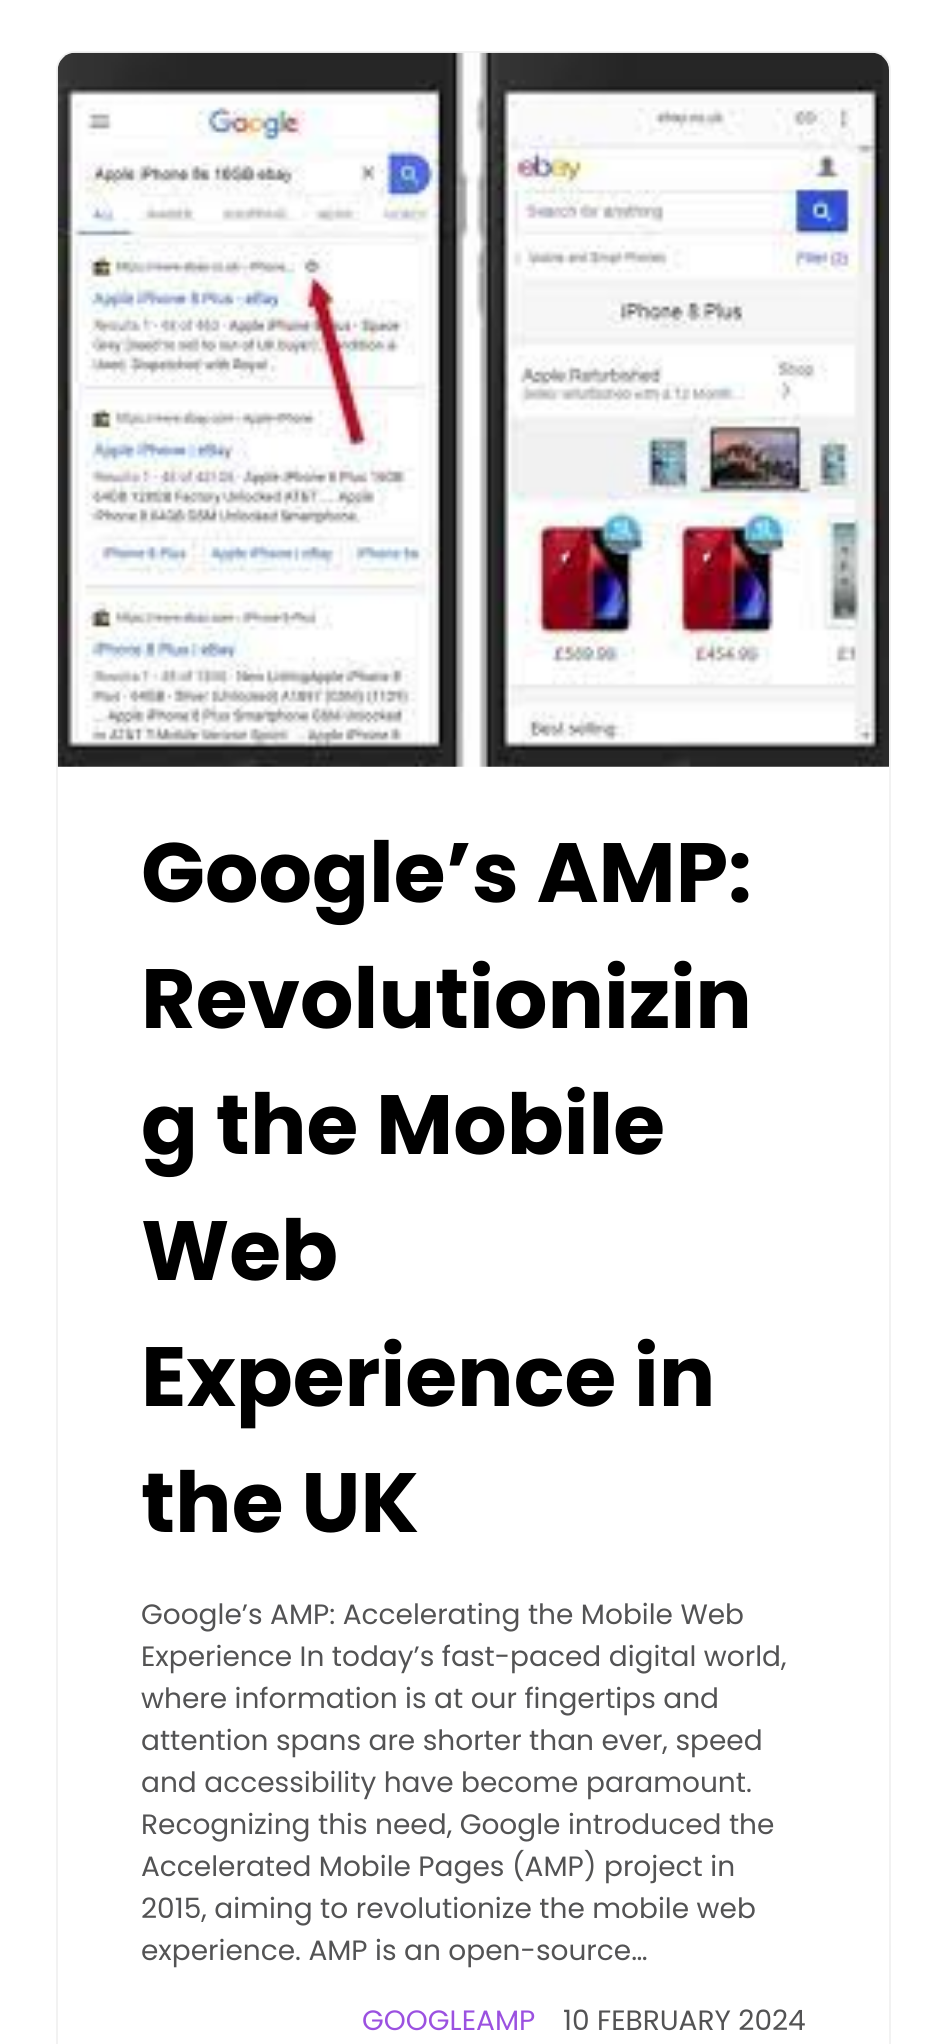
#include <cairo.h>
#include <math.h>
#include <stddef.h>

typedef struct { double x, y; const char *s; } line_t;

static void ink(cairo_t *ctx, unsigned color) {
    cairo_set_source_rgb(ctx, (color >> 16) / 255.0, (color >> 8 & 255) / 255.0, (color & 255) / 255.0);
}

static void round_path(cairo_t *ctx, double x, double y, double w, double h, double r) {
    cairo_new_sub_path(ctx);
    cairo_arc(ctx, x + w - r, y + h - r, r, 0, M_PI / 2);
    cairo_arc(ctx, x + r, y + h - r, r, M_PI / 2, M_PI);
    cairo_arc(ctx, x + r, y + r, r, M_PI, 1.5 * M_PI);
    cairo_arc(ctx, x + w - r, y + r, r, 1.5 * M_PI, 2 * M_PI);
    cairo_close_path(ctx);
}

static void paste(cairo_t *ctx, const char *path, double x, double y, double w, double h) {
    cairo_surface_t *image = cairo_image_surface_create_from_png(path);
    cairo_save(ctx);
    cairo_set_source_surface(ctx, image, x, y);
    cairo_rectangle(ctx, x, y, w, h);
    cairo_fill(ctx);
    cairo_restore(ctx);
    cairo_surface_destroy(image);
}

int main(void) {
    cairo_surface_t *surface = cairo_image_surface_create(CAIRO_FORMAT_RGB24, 946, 2044);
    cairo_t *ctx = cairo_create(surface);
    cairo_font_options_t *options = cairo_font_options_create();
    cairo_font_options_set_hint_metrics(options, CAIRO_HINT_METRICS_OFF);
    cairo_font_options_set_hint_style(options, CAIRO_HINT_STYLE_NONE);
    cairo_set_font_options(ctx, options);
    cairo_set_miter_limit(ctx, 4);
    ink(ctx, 0xFFFFFF);
    cairo_paint(ctx);
    round_path(ctx, 57, 52, 833, 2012, 18);
    ink(ctx, 0xF2F2F2);
    cairo_stroke(ctx);
    paste(ctx, "media/1.png", 57, 52, 832, 715);
    cairo_select_font_face(ctx, "Poppins", CAIRO_FONT_SLANT_NORMAL, CAIRO_FONT_WEIGHT_BOLD);
    cairo_set_font_size(ctx, 84);
    ink(ctx, 0x000000);
    {
        static const line_t items[] = {
            {141, 902, "Google’s AMP:"},
            {141, 1028, "Revolutionizin"},
            {141, 1154, "g the Mobile"},
            {141, 1280, "Web"},
            {141, 1406, "Experience in"},
            {141, 1532, "the UK"},
        };
        for (size_t i = 0; i < sizeof items / sizeof *items; i++) {
            cairo_move_to(ctx, items[i].x, items[i].y);
            cairo_show_text(ctx, items[i].s);
        }
    }
    cairo_select_font_face(ctx, "Poppins", CAIRO_FONT_SLANT_NORMAL, CAIRO_FONT_WEIGHT_NORMAL);
    cairo_set_font_size(ctx, 28);
    ink(ctx, 0x535354);
    {
        static const line_t items[] = {
            {141, 1624, "Google’s AMP: Accelerating the Mobile Web"},
            {141, 1666, "Experience In today’s fast-paced digital world,"},
            {141, 1708, "where information is at our fingertips and"},
            {141, 1750, "attention spans are shorter than ever, speed"},
            {141, 1792, "and accessibility have become paramount."},
            {141, 1834, "Recognizing this need, Google introduced the"},
            {141, 1876, "Accelerated Mobile Pages (AMP) project in"},
            {141, 1918, "2015, aiming to revolutionize the mobile web"},
            {141, 1960, "experience. AMP is an open-source…"},
        };
        for (size_t i = 0; i < sizeof items / sizeof *items; i++) {
            cairo_move_to(ctx, items[i].x, items[i].y);
            cairo_show_text(ctx, items[i].s);
        }
    }
    ink(ctx, 0x9B51E0);
    cairo_move_to(ctx, 362, 2030);
    cairo_show_text(ctx, "GOOGLEAMP");
    ink(ctx, 0x535354);
    cairo_move_to(ctx, 563, 2030);
    cairo_show_text(ctx, "10 FEBRUARY 2024");
    cairo_surface_write_to_png(surface, "image.png");
    cairo_font_options_destroy(options);
    cairo_destroy(ctx);
    cairo_surface_destroy(surface);
    return 0;
}
